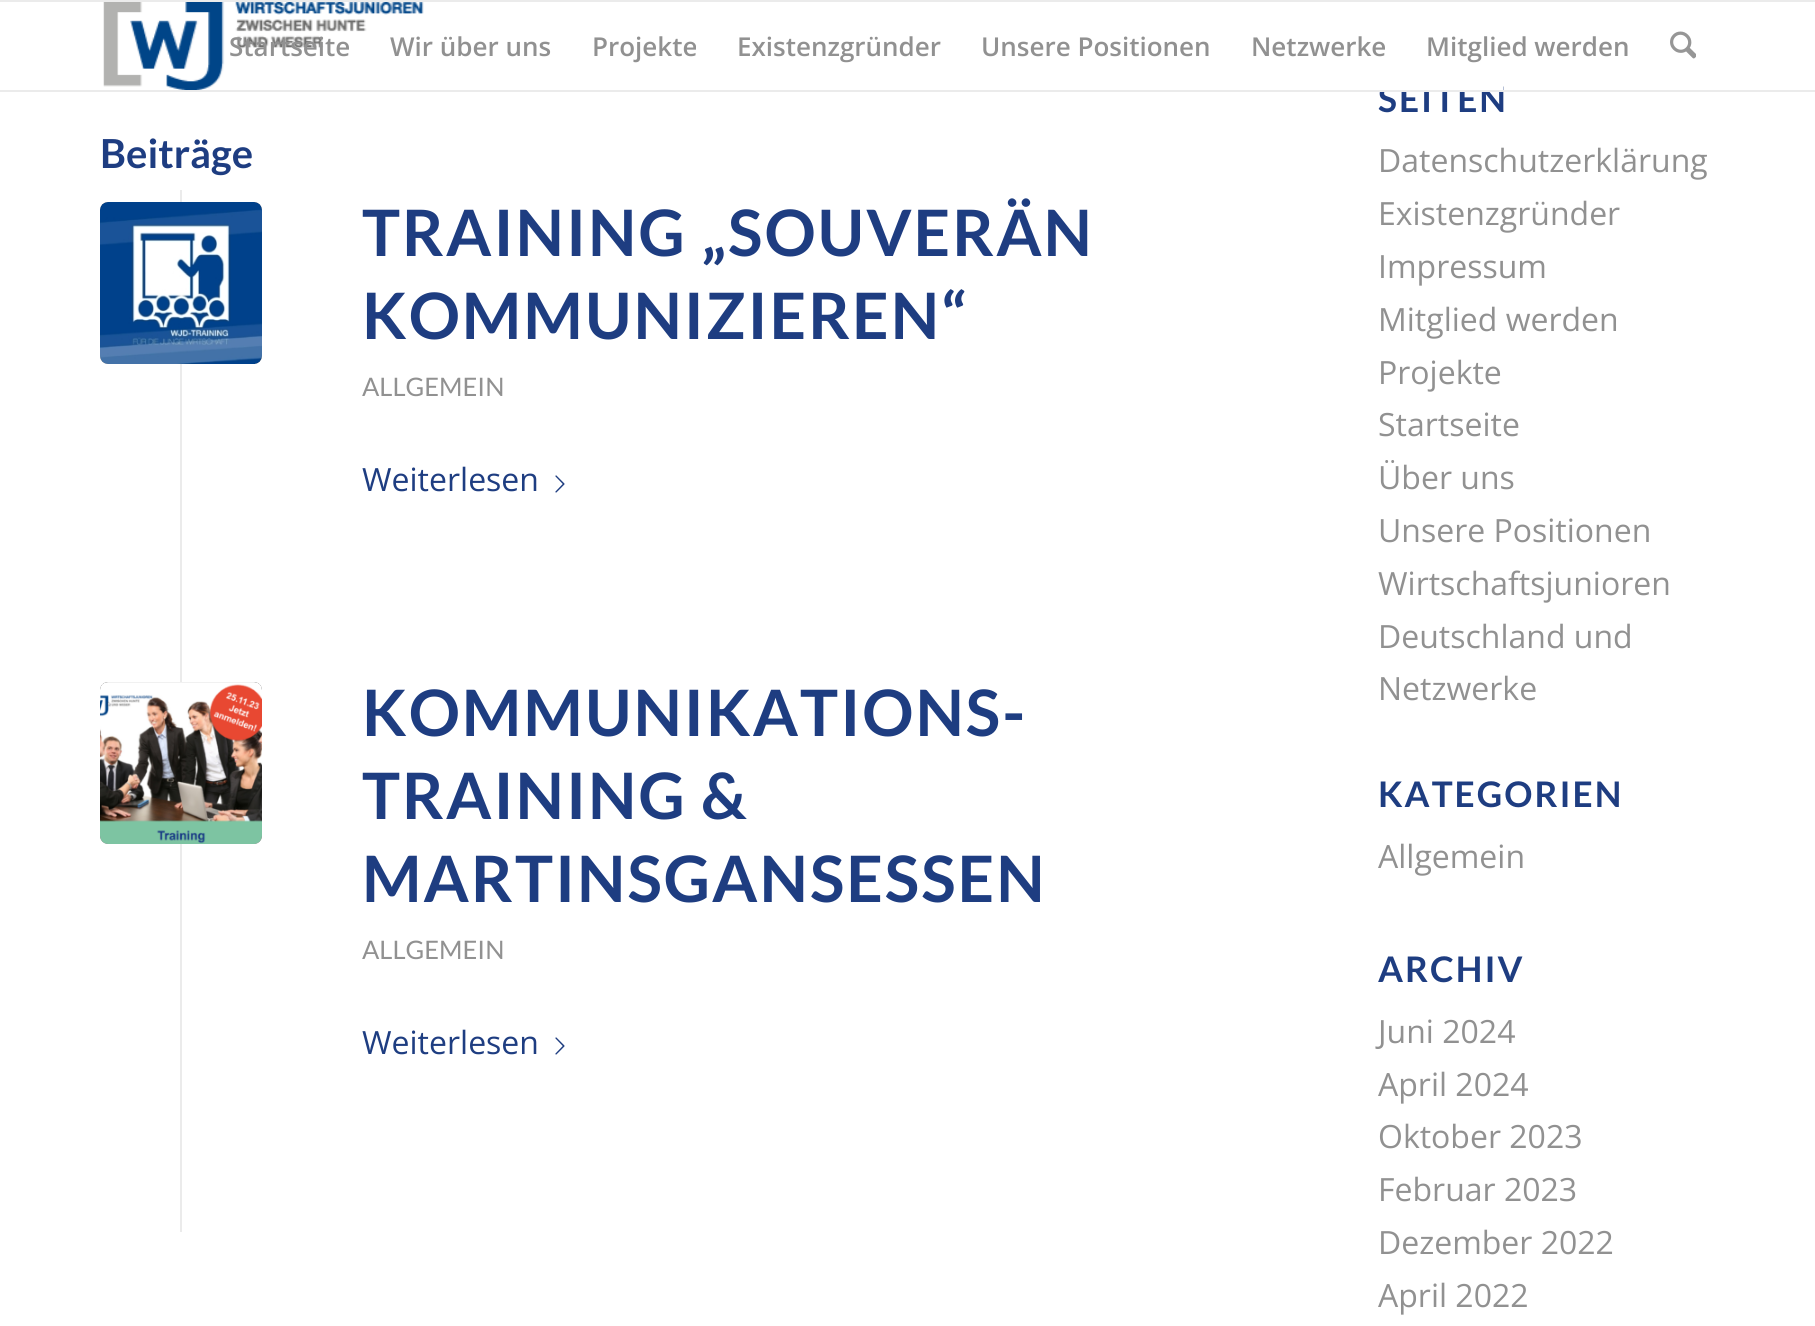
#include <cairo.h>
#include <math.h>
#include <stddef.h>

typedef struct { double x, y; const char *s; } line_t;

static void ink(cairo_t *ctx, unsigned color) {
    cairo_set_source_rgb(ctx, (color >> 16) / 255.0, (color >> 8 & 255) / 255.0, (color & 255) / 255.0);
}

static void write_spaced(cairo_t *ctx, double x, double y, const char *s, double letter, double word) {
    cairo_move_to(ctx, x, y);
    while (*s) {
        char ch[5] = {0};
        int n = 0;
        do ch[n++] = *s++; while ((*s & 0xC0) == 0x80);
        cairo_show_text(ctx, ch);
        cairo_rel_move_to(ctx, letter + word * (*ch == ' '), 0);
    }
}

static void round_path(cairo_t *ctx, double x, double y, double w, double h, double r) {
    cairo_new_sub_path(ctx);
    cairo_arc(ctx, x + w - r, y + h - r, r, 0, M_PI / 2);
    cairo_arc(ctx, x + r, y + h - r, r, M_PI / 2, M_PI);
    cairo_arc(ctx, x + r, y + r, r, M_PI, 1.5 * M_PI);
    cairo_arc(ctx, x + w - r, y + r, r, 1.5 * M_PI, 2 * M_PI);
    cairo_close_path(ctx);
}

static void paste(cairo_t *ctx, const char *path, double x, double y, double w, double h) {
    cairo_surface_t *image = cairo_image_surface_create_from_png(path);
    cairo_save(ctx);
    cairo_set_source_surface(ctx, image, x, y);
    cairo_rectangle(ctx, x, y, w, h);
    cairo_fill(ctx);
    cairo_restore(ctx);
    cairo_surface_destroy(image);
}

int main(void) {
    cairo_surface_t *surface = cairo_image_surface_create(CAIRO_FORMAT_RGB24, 1815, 1326);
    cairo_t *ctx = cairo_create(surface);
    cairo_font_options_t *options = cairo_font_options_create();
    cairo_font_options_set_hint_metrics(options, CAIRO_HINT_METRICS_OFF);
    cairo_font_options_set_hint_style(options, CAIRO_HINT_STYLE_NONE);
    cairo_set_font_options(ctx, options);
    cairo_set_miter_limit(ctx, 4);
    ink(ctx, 0xFFFFFF);
    cairo_paint(ctx);
    ink(ctx, 0xEBEBEB);
    cairo_rectangle(ctx, 0, 0, 1815, 2);
    cairo_fill(ctx);
    cairo_select_font_face(ctx, "Lato", CAIRO_FONT_SLANT_NORMAL, CAIRO_FONT_WEIGHT_BOLD);
    cairo_set_font_size(ctx, 35.25);
    ink(ctx, 0x1E3D81);
    write_spaced(ctx, 1378, 112, "SEITEN", 2, 0);
    ink(ctx, 0xEBEBEB);
    cairo_rectangle(ctx, 0, 90, 1815, 2);
    cairo_fill(ctx);
    paste(ctx, "media/1.png", 103, 2, 321, 88);
    cairo_select_font_face(ctx, "Open Sans SemiBold", CAIRO_FONT_SLANT_NORMAL, CAIRO_FONT_WEIGHT_NORMAL);
    cairo_set_font_size(ctx, 26);
    ink(ctx, 0x919191);
    {
        static const line_t items[] = {
            {229, 56, "Startseite"},
            {390, 56, "Wir über uns"},
            {592, 56, "Projekte"},
            {737, 56, "Existenzgründer"},
            {981, 56, "Unsere Positionen"},
            {1251, 56, "Netzwerke"},
            {1426, 56, "Mitglied werden"},
        };
        for (size_t i = 0; i < sizeof items / sizeof *items; i++) {
            cairo_move_to(ctx, items[i].x, items[i].y);
            cairo_show_text(ctx, items[i].s);
        }
    }
    paste(ctx, "media/2.png", 1670, 31, 26, 28);
    ink(ctx, 0xFFFFFF);
    cairo_rectangle(ctx, 1380, 86, 123, 4);
    cairo_fill(ctx);
    cairo_select_font_face(ctx, "Lato", CAIRO_FONT_SLANT_NORMAL, CAIRO_FONT_WEIGHT_BOLD);
    cairo_set_font_size(ctx, 40);
    ink(ctx, 0x1E3D81);
    cairo_move_to(ctx, 100, 168);
    cairo_show_text(ctx, "Beiträge");
    ink(ctx, 0xEBEBEB);
    cairo_rectangle(ctx, 180, 190, 2, 1042);
    cairo_fill(ctx);
    cairo_set_font_size(ctx, 64);
    ink(ctx, 0x1E3D81);
    write_spaced(ctx, 362, 256, "TRAINING „SOUVERÄN", 2, 0);
    write_spaced(ctx, 362, 339, "KOMMUNIZIEREN“", 2, 0);
    cairo_select_font_face(ctx, "Lato", CAIRO_FONT_SLANT_NORMAL, CAIRO_FONT_WEIGHT_NORMAL);
    cairo_set_font_size(ctx, 25.5);
    ink(ctx, 0x919191);
    cairo_move_to(ctx, 362, 396);
    cairo_show_text(ctx, "ALLGEMEIN");
    cairo_select_font_face(ctx, "Open Sans", CAIRO_FONT_SLANT_NORMAL, CAIRO_FONT_WEIGHT_NORMAL);
    cairo_set_font_size(ctx, 32);
    ink(ctx, 0x1E3D81);
    cairo_move_to(ctx, 362, 491);
    cairo_show_text(ctx, "Weiterlesen");
    paste(ctx, "media/3.png", 555, 475, 10, 18);
    ink(ctx, 0x919191);
    round_path(ctx, 100, 202, 162, 162, 8);
    cairo_fill(ctx);
    paste(ctx, "media/4.png", 100, 202, 162, 162);
    round_path(ctx, 100, 682, 162, 162, 8);
    cairo_fill(ctx);
    paste(ctx, "media/5.png", 100, 682, 162, 162);
    cairo_select_font_face(ctx, "Lato", CAIRO_FONT_SLANT_NORMAL, CAIRO_FONT_WEIGHT_BOLD);
    cairo_set_font_size(ctx, 64);
    ink(ctx, 0x1E3D81);
    {
        static const line_t items[] = {
            {362, 736, "KOMMUNIKATIONS-"},
            {362, 819, "TRAINING &"},
            {362, 902, "MARTINSGANSESSEN"},
        };
        for (size_t i = 0; i < sizeof items / sizeof *items; i++) {
            write_spaced(ctx, items[i].x, items[i].y, items[i].s, 2, 0);
        }
    }
    cairo_select_font_face(ctx, "Lato", CAIRO_FONT_SLANT_NORMAL, CAIRO_FONT_WEIGHT_NORMAL);
    cairo_set_font_size(ctx, 25.5);
    ink(ctx, 0x919191);
    cairo_move_to(ctx, 362, 959);
    cairo_show_text(ctx, "ALLGEMEIN");
    cairo_select_font_face(ctx, "Open Sans", CAIRO_FONT_SLANT_NORMAL, CAIRO_FONT_WEIGHT_NORMAL);
    cairo_set_font_size(ctx, 32);
    ink(ctx, 0x1E3D81);
    cairo_move_to(ctx, 362, 1054);
    cairo_show_text(ctx, "Weiterlesen");
    paste(ctx, "media/3.png", 555, 1037, 10, 18);
    ink(ctx, 0x919191);
    {
        static const line_t items[] = {
            {1378, 172, "Datenschutzerklärung"},
            {1378, 225, "Existenzgründer"},
            {1378, 278, "Impressum"},
            {1378, 331, "Mitglied werden"},
            {1378, 384, "Projekte"},
            {1378, 436, "Startseite"},
            {1378, 489, "Über uns"},
            {1378, 542, "Unsere Positionen"},
            {1378, 595, "Wirtschaftsjunioren"},
            {1378, 648, "Deutschland und"},
            {1378, 700, "Netzwerke"},
        };
        for (size_t i = 0; i < sizeof items / sizeof *items; i++) {
            cairo_move_to(ctx, items[i].x, items[i].y);
            cairo_show_text(ctx, items[i].s);
        }
    }
    cairo_select_font_face(ctx, "Lato", CAIRO_FONT_SLANT_NORMAL, CAIRO_FONT_WEIGHT_BOLD);
    cairo_set_font_size(ctx, 35.25);
    ink(ctx, 0x1E3D81);
    write_spaced(ctx, 1378, 807, "KATEGORIEN", 2, 0);
    cairo_select_font_face(ctx, "Open Sans", CAIRO_FONT_SLANT_NORMAL, CAIRO_FONT_WEIGHT_NORMAL);
    cairo_set_font_size(ctx, 32);
    ink(ctx, 0x919191);
    cairo_move_to(ctx, 1378, 868);
    cairo_show_text(ctx, "Allgemein");
    cairo_select_font_face(ctx, "Lato", CAIRO_FONT_SLANT_NORMAL, CAIRO_FONT_WEIGHT_BOLD);
    cairo_set_font_size(ctx, 35.25);
    ink(ctx, 0x1E3D81);
    write_spaced(ctx, 1378, 982, "ARCHIV", 2, 0);
    cairo_select_font_face(ctx, "Open Sans", CAIRO_FONT_SLANT_NORMAL, CAIRO_FONT_WEIGHT_NORMAL);
    cairo_set_font_size(ctx, 32);
    ink(ctx, 0x919191);
    {
        static const line_t items[] = {
            {1378, 1043, "Juni 2024"},
            {1378, 1096, "April 2024"},
            {1378, 1148, "Oktober 2023"},
            {1378, 1201, "Februar 2023"},
            {1378, 1254, "Dezember 2022"},
            {1378, 1307, "April 2022"},
        };
        for (size_t i = 0; i < sizeof items / sizeof *items; i++) {
            cairo_move_to(ctx, items[i].x, items[i].y);
            cairo_show_text(ctx, items[i].s);
        }
    }
    cairo_surface_write_to_png(surface, "image.png");
    cairo_font_options_destroy(options);
    cairo_destroy(ctx);
    cairo_surface_destroy(surface);
    return 0;
}
